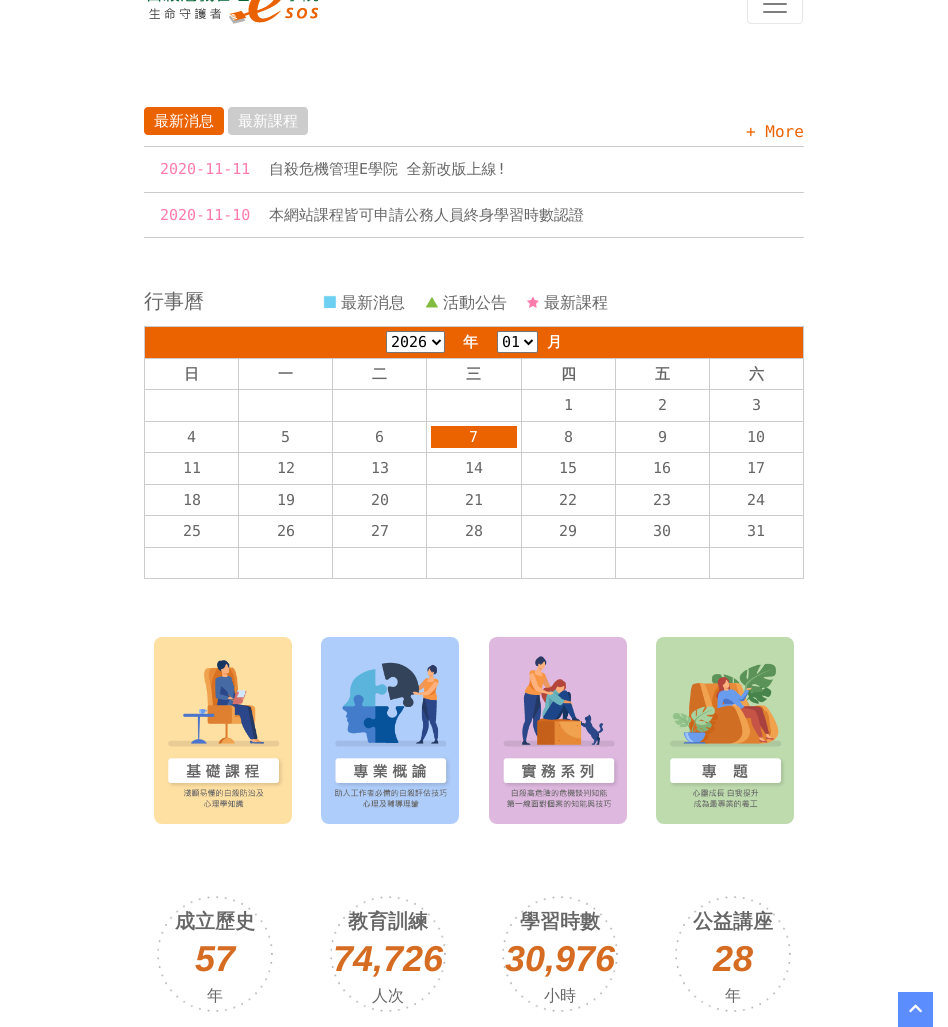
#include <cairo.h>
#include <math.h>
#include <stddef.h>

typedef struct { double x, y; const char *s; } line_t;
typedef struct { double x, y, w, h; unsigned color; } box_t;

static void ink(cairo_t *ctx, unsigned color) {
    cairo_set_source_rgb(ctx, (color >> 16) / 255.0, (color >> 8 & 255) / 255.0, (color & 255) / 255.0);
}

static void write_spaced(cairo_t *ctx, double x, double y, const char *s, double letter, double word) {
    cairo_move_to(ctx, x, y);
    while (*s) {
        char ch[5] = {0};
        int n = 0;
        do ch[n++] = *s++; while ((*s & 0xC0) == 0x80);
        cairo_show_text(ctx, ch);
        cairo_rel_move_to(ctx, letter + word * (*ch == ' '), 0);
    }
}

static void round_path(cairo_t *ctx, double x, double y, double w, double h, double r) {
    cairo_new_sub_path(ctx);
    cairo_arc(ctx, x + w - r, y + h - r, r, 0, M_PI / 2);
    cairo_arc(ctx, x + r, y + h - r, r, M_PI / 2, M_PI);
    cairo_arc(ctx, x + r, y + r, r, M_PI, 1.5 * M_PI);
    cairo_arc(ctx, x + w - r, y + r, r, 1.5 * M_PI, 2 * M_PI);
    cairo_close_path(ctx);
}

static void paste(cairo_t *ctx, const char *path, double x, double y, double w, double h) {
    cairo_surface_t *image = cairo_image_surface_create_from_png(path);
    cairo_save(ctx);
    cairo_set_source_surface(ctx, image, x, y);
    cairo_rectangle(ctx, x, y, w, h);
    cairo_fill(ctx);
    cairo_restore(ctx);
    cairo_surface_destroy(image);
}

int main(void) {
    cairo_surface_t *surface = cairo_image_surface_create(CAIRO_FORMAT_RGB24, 948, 1027);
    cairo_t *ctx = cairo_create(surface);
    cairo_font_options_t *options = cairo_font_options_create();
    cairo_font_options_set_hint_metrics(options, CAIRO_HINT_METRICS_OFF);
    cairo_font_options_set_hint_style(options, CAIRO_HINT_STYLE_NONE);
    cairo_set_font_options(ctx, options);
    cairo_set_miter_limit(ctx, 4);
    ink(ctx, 0xFFFFFF);
    cairo_paint(ctx);
    paste(ctx, "media/1.png", 148, 0, 171, 24);
    round_path(ctx, 747.5, -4.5, 55, 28, 3.5);
    ink(ctx, 0xE6E6E6);
    cairo_set_line_width(ctx, 1);
    cairo_stroke(ctx);
    paste(ctx, "media/2.png", 763, 3, 24, 10);
    ink(ctx, 0xEB6200);
    round_path(ctx, 144, 107, 80, 28, 4);
    cairo_fill(ctx);
    cairo_select_font_face(ctx, "WenQuanYi Zen Hei Medium", CAIRO_FONT_SLANT_NORMAL, CAIRO_FONT_WEIGHT_NORMAL);
    cairo_set_font_size(ctx, 15);
    ink(ctx, 0xFFFFFF);
    cairo_move_to(ctx, 154, 126);
    cairo_show_text(ctx, "最新消息");
    ink(ctx, 0xCCCCCC);
    round_path(ctx, 228, 107, 80, 28, 4);
    cairo_fill(ctx);
    ink(ctx, 0xFFFFFF);
    cairo_move_to(ctx, 238, 126);
    cairo_show_text(ctx, "最新課程");
    cairo_select_font_face(ctx, "DejaVu Sans Mono", CAIRO_FONT_SLANT_NORMAL, CAIRO_FONT_WEIGHT_NORMAL);
    cairo_set_font_size(ctx, 16);
    ink(ctx, 0xEB6200);
    cairo_move_to(ctx, 746, 137);
    cairo_show_text(ctx, "+ More");
    ink(ctx, 0xCCCCCC);
    cairo_rectangle(ctx, 144, 146, 660, 1);
    cairo_fill(ctx);
    cairo_rectangle(ctx, 144, 192, 660, 1);
    cairo_fill(ctx);
    cairo_set_font_size(ctx, 15);
    ink(ctx, 0xFF7BAC);
    cairo_move_to(ctx, 160, 174);
    cairo_show_text(ctx, "2020-11-11");
    cairo_select_font_face(ctx, "WenQuanYi Zen Hei Medium", CAIRO_FONT_SLANT_NORMAL, CAIRO_FONT_WEIGHT_NORMAL);
    ink(ctx, 0x666666);
    cairo_move_to(ctx, 269, 174);
    cairo_show_text(ctx, "自殺危機管理");
    cairo_select_font_face(ctx, "DejaVu Sans Mono", CAIRO_FONT_SLANT_NORMAL, CAIRO_FONT_WEIGHT_NORMAL);
    cairo_move_to(ctx, 359, 174);
    cairo_show_text(ctx, "E");
    cairo_select_font_face(ctx, "WenQuanYi Zen Hei Medium", CAIRO_FONT_SLANT_NORMAL, CAIRO_FONT_WEIGHT_NORMAL);
    write_spaced(ctx, 368, 174, "學院 全新改版上線", 0, 4);
    cairo_select_font_face(ctx, "DejaVu Sans Mono", CAIRO_FONT_SLANT_NORMAL, CAIRO_FONT_WEIGHT_NORMAL);
    cairo_move_to(ctx, 497, 174);
    cairo_show_text(ctx, "!");
    ink(ctx, 0xCCCCCC);
    cairo_rectangle(ctx, 144, 237, 660, 1);
    cairo_fill(ctx);
    ink(ctx, 0xFF7BAC);
    cairo_move_to(ctx, 160, 220);
    cairo_show_text(ctx, "2020-11-10");
    cairo_select_font_face(ctx, "WenQuanYi Zen Hei Medium", CAIRO_FONT_SLANT_NORMAL, CAIRO_FONT_WEIGHT_NORMAL);
    ink(ctx, 0x666666);
    cairo_move_to(ctx, 269, 220);
    cairo_show_text(ctx, "本網站課程皆可申請公務人員終身學習時數認證");
    cairo_set_font_size(ctx, 20);
    cairo_move_to(ctx, 144, 308);
    cairo_show_text(ctx, "行事曆");
    paste(ctx, "media/3.png", 323, 295, 13, 13);
    cairo_set_font_size(ctx, 16);
    cairo_move_to(ctx, 341, 308);
    cairo_show_text(ctx, "最新消息");
    paste(ctx, "media/4.png", 425, 297, 13, 11);
    cairo_move_to(ctx, 443, 308);
    cairo_show_text(ctx, "活動公告");
    paste(ctx, "media/5.png", 526, 296, 13, 12);
    cairo_move_to(ctx, 544, 308);
    cairo_show_text(ctx, "最新課程");
    {
        static const box_t items[] = {
            {145, 327, 658, 31, 0xEB6200},
            {144, 326, 660, 1, 0xCCCCCC},
            {709, 358, 95, 1, 0xCCCCCC},
            {709, 389, 95, 1, 0xCCCCCC},
            {709, 421, 95, 1, 0xCCCCCC},
            {709, 452, 95, 1, 0xCCCCCC},
            {709, 484, 95, 1, 0xCCCCCC},
            {709, 515, 95, 1, 0xCCCCCC},
            {709, 547, 95, 1, 0xCCCCCC},
            {803, 547, 1, 32, 0xCCCCCC},
            {803, 515, 1, 33, 0xCCCCCC},
            {803, 484, 1, 32, 0xCCCCCC},
            {803, 452, 1, 33, 0xCCCCCC},
            {803, 421, 1, 32, 0xCCCCCC},
            {803, 389, 1, 33, 0xCCCCCC},
            {803, 358, 1, 32, 0xCCCCCC},
            {803, 326, 1, 33, 0xCCCCCC},
            {709, 578, 95, 1, 0xCCCCCC},
            {709, 547, 1, 32, 0xCCCCCC},
            {615, 547, 95, 1, 0xCCCCCC},
            {709, 515, 1, 33, 0xCCCCCC},
            {615, 515, 95, 1, 0xCCCCCC},
            {709, 484, 1, 32, 0xCCCCCC},
            {615, 484, 95, 1, 0xCCCCCC},
            {709, 452, 1, 33, 0xCCCCCC},
            {615, 452, 95, 1, 0xCCCCCC},
            {709, 421, 1, 32, 0xCCCCCC},
            {615, 421, 95, 1, 0xCCCCCC},
            {709, 389, 1, 33, 0xCCCCCC},
            {615, 389, 95, 1, 0xCCCCCC},
            {709, 358, 1, 32, 0xCCCCCC},
            {615, 358, 95, 1, 0xCCCCCC},
            {615, 578, 95, 1, 0xCCCCCC},
            {615, 547, 1, 32, 0xCCCCCC},
            {521, 547, 95, 1, 0xCCCCCC},
            {615, 515, 1, 33, 0xCCCCCC},
            {521, 515, 95, 1, 0xCCCCCC},
            {615, 484, 1, 32, 0xCCCCCC},
            {521, 484, 95, 1, 0xCCCCCC},
            {615, 452, 1, 33, 0xCCCCCC},
            {521, 452, 95, 1, 0xCCCCCC},
            {615, 421, 1, 32, 0xCCCCCC},
            {521, 421, 95, 1, 0xCCCCCC},
            {615, 389, 1, 33, 0xCCCCCC},
            {521, 389, 95, 1, 0xCCCCCC},
            {615, 358, 1, 32, 0xCCCCCC},
            {521, 358, 95, 1, 0xCCCCCC},
            {521, 578, 95, 1, 0xCCCCCC},
            {521, 547, 1, 32, 0xCCCCCC},
            {426, 547, 96, 1, 0xCCCCCC},
            {521, 515, 1, 33, 0xCCCCCC},
            {426, 515, 96, 1, 0xCCCCCC},
            {521, 484, 1, 32, 0xCCCCCC},
            {426, 484, 96, 1, 0xCCCCCC},
            {521, 452, 1, 33, 0xCCCCCC},
            {426, 452, 96, 1, 0xCCCCCC},
            {521, 421, 1, 32, 0xCCCCCC},
            {426, 421, 96, 1, 0xCCCCCC},
            {521, 389, 1, 33, 0xCCCCCC},
            {426, 389, 96, 1, 0xCCCCCC},
            {521, 358, 1, 32, 0xCCCCCC},
            {426, 358, 96, 1, 0xCCCCCC},
            {426, 578, 96, 1, 0xCCCCCC},
            {426, 547, 1, 32, 0xCCCCCC},
            {332, 547, 95, 1, 0xCCCCCC},
            {426, 515, 1, 33, 0xCCCCCC},
            {332, 515, 95, 1, 0xCCCCCC},
            {426, 484, 1, 32, 0xCCCCCC},
            {332, 484, 95, 1, 0xCCCCCC},
            {426, 452, 1, 33, 0xCCCCCC},
            {332, 452, 95, 1, 0xCCCCCC},
            {426, 421, 1, 32, 0xCCCCCC},
            {332, 421, 95, 1, 0xCCCCCC},
            {426, 389, 1, 33, 0xCCCCCC},
            {332, 389, 95, 1, 0xCCCCCC},
            {426, 358, 1, 32, 0xCCCCCC},
            {332, 358, 95, 1, 0xCCCCCC},
            {332, 578, 95, 1, 0xCCCCCC},
            {332, 547, 1, 32, 0xCCCCCC},
            {238, 547, 95, 1, 0xCCCCCC},
            {332, 515, 1, 33, 0xCCCCCC},
            {238, 515, 95, 1, 0xCCCCCC},
            {332, 484, 1, 32, 0xCCCCCC},
            {238, 484, 95, 1, 0xCCCCCC},
            {332, 452, 1, 33, 0xCCCCCC},
            {238, 452, 95, 1, 0xCCCCCC},
            {332, 421, 1, 32, 0xCCCCCC},
            {238, 421, 95, 1, 0xCCCCCC},
            {332, 389, 1, 33, 0xCCCCCC},
            {238, 389, 95, 1, 0xCCCCCC},
            {332, 358, 1, 32, 0xCCCCCC},
            {238, 358, 95, 1, 0xCCCCCC},
            {238, 578, 95, 1, 0xCCCCCC},
            {238, 547, 1, 32, 0xCCCCCC},
            {144, 547, 95, 1, 0xCCCCCC},
            {238, 515, 1, 33, 0xCCCCCC},
            {144, 515, 95, 1, 0xCCCCCC},
            {238, 484, 1, 32, 0xCCCCCC},
            {144, 484, 95, 1, 0xCCCCCC},
            {238, 452, 1, 33, 0xCCCCCC},
            {144, 452, 95, 1, 0xCCCCCC},
            {238, 421, 1, 32, 0xCCCCCC},
            {144, 421, 95, 1, 0xCCCCCC},
            {238, 389, 1, 33, 0xCCCCCC},
            {144, 389, 95, 1, 0xCCCCCC},
            {238, 358, 1, 32, 0xCCCCCC},
            {144, 358, 95, 1, 0xCCCCCC},
            {144, 578, 95, 1, 0xCCCCCC},
            {144, 547, 1, 32, 0xCCCCCC},
            {144, 515, 1, 33, 0xCCCCCC},
            {144, 484, 1, 32, 0xCCCCCC},
            {144, 452, 1, 33, 0xCCCCCC},
            {144, 421, 1, 32, 0xCCCCCC},
            {144, 389, 1, 33, 0xCCCCCC},
            {144, 358, 1, 32, 0xCCCCCC},
            {144, 326, 1, 33, 0xCCCCCC},
        };
        for (size_t i = 0; i < sizeof items / sizeof *items; i++) {
            ink(ctx, items[i].color);
            cairo_rectangle(ctx, items[i].x, items[i].y, items[i].w, items[i].h);
            cairo_fill(ctx);
        }
    }
    ink(ctx, 0xFFFFFF);
    round_path(ctx, 386.5, 331.5, 58, 21, 1.5);
    cairo_fill_preserve(ctx);
    ink(ctx, 0x767676);
    cairo_stroke(ctx);
    cairo_new_path(ctx);
    cairo_move_to(ctx, 432.5, 340);
    cairo_line_to(ctx, 436.5, 344);
    cairo_line_to(ctx, 440.5, 340);
    ink(ctx, 0x000000);
    cairo_set_line_width(ctx, 2);
    cairo_stroke(ctx);
    cairo_select_font_face(ctx, "DejaVu Sans Mono", CAIRO_FONT_SLANT_NORMAL, CAIRO_FONT_WEIGHT_NORMAL);
    cairo_set_font_size(ctx, 15);
    cairo_move_to(ctx, 391, 347);
    cairo_show_text(ctx, "2026");
    cairo_select_font_face(ctx, "WenQuanYi Zen Hei", CAIRO_FONT_SLANT_NORMAL, CAIRO_FONT_WEIGHT_BOLD);
    ink(ctx, 0xFFFFFF);
    cairo_move_to(ctx, 463, 347);
    cairo_show_text(ctx, "年");
    round_path(ctx, 497.5, 331.5, 40, 21, 1.5);
    cairo_fill_preserve(ctx);
    ink(ctx, 0x767676);
    cairo_set_line_width(ctx, 1);
    cairo_stroke(ctx);
    cairo_new_path(ctx);
    cairo_move_to(ctx, 524.5, 340);
    cairo_line_to(ctx, 528.5, 344);
    cairo_line_to(ctx, 532.5, 340);
    ink(ctx, 0x000000);
    cairo_set_line_width(ctx, 2);
    cairo_stroke(ctx);
    cairo_select_font_face(ctx, "DejaVu Sans Mono", CAIRO_FONT_SLANT_NORMAL, CAIRO_FONT_WEIGHT_NORMAL);
    cairo_move_to(ctx, 502, 347);
    cairo_show_text(ctx, "01");
    cairo_select_font_face(ctx, "WenQuanYi Zen Hei", CAIRO_FONT_SLANT_NORMAL, CAIRO_FONT_WEIGHT_BOLD);
    ink(ctx, 0xFFFFFF);
    cairo_move_to(ctx, 547, 347);
    cairo_show_text(ctx, "月");
    ink(ctx, 0x666666);
    {
        static const line_t items[] = {
            {184, 379, "日"},
            {278, 379, "一"},
            {372, 379, "二"},
            {466, 379, "三"},
            {561, 379, "四"},
            {655, 379, "五"},
            {749, 379, "六"},
        };
        for (size_t i = 0; i < sizeof items / sizeof *items; i++) {
            cairo_move_to(ctx, items[i].x, items[i].y);
            cairo_show_text(ctx, items[i].s);
        }
    }
    cairo_select_font_face(ctx, "DejaVu Sans Mono", CAIRO_FONT_SLANT_NORMAL, CAIRO_FONT_WEIGHT_NORMAL);
    {
        static const line_t items[] = {
            {564, 410, "1"},
            {658, 410, "2"},
            {752, 410, "3"},
            {187, 442, "4"},
            {281, 442, "5"},
            {375, 442, "6"},
        };
        for (size_t i = 0; i < sizeof items / sizeof *items; i++) {
            cairo_move_to(ctx, items[i].x, items[i].y);
            cairo_show_text(ctx, items[i].s);
        }
    }
    ink(ctx, 0xEB6200);
    cairo_rectangle(ctx, 431, 426, 86, 22);
    cairo_fill(ctx);
    ink(ctx, 0xFFFFFF);
    cairo_move_to(ctx, 469, 442);
    cairo_show_text(ctx, "7");
    ink(ctx, 0x666666);
    {
        static const line_t items[] = {
            {564, 442, "8"},
            {658, 442, "9"},
            {747, 442, "10"},
            {183, 473, "11"},
            {277, 473, "12"},
            {371, 473, "13"},
            {465, 473, "14"},
            {559, 473, "15"},
            {653, 473, "16"},
            {747, 473, "17"},
            {183, 505, "18"},
            {277, 505, "19"},
            {371, 505, "20"},
            {465, 505, "21"},
            {559, 505, "22"},
            {653, 505, "23"},
            {747, 505, "24"},
            {183, 536, "25"},
            {277, 536, "26"},
            {371, 536, "27"},
            {465, 536, "28"},
            {559, 536, "29"},
            {653, 536, "30"},
            {747, 536, "31"},
        };
        for (size_t i = 0; i < sizeof items / sizeof *items; i++) {
            cairo_move_to(ctx, items[i].x, items[i].y);
            cairo_show_text(ctx, items[i].s);
        }
    }
    paste(ctx, "media/6.png", 154, 637, 138, 187);
    paste(ctx, "media/7.png", 321, 637, 138, 187);
    paste(ctx, "media/8.png", 489, 637, 138, 187);
    paste(ctx, "media/9.png", 656, 637, 138, 187);
    paste(ctx, "media/10.png", 157, 896, 116, 116);
    cairo_select_font_face(ctx, "WenQuanYi Zen Hei", CAIRO_FONT_SLANT_NORMAL, CAIRO_FONT_WEIGHT_BOLD);
    cairo_set_font_size(ctx, 20);
    cairo_move_to(ctx, 175, 928);
    cairo_show_text(ctx, "成立歷史");
    cairo_select_font_face(ctx, "Liberation Sans", CAIRO_FONT_SLANT_ITALIC, CAIRO_FONT_WEIGHT_BOLD);
    cairo_set_font_size(ctx, 36);
    ink(ctx, 0xD66B22);
    cairo_move_to(ctx, 195, 971);
    cairo_show_text(ctx, "57");
    cairo_select_font_face(ctx, "WenQuanYi Zen Hei Medium", CAIRO_FONT_SLANT_NORMAL, CAIRO_FONT_WEIGHT_NORMAL);
    cairo_set_font_size(ctx, 16);
    ink(ctx, 0x666666);
    cairo_move_to(ctx, 207, 1001);
    cairo_show_text(ctx, "年");
    paste(ctx, "media/10.png", 330, 896, 116, 116);
    cairo_select_font_face(ctx, "WenQuanYi Zen Hei", CAIRO_FONT_SLANT_NORMAL, CAIRO_FONT_WEIGHT_BOLD);
    cairo_set_font_size(ctx, 20);
    cairo_move_to(ctx, 348, 928);
    cairo_show_text(ctx, "教育訓練");
    cairo_select_font_face(ctx, "Liberation Sans", CAIRO_FONT_SLANT_ITALIC, CAIRO_FONT_WEIGHT_BOLD);
    cairo_set_font_size(ctx, 36);
    ink(ctx, 0xD66B22);
    cairo_move_to(ctx, 333, 971);
    cairo_show_text(ctx, "74,726");
    cairo_select_font_face(ctx, "WenQuanYi Zen Hei Medium", CAIRO_FONT_SLANT_NORMAL, CAIRO_FONT_WEIGHT_NORMAL);
    cairo_set_font_size(ctx, 16);
    ink(ctx, 0x666666);
    cairo_move_to(ctx, 372, 1001);
    cairo_show_text(ctx, "人次");
    paste(ctx, "media/11.png", 502, 896, 116, 116);
    cairo_select_font_face(ctx, "WenQuanYi Zen Hei", CAIRO_FONT_SLANT_NORMAL, CAIRO_FONT_WEIGHT_BOLD);
    cairo_set_font_size(ctx, 20);
    cairo_move_to(ctx, 520, 928);
    cairo_show_text(ctx, "學習時數");
    cairo_select_font_face(ctx, "Liberation Sans", CAIRO_FONT_SLANT_ITALIC, CAIRO_FONT_WEIGHT_BOLD);
    cairo_set_font_size(ctx, 36);
    ink(ctx, 0xD66B22);
    cairo_move_to(ctx, 505, 971);
    cairo_show_text(ctx, "30,976");
    cairo_select_font_face(ctx, "WenQuanYi Zen Hei Medium", CAIRO_FONT_SLANT_NORMAL, CAIRO_FONT_WEIGHT_NORMAL);
    cairo_set_font_size(ctx, 16);
    ink(ctx, 0x666666);
    cairo_move_to(ctx, 544, 1001);
    cairo_show_text(ctx, "小時");
    paste(ctx, "media/10.png", 675, 896, 116, 116);
    cairo_select_font_face(ctx, "WenQuanYi Zen Hei", CAIRO_FONT_SLANT_NORMAL, CAIRO_FONT_WEIGHT_BOLD);
    cairo_set_font_size(ctx, 20);
    cairo_move_to(ctx, 693, 928);
    cairo_show_text(ctx, "公益講座");
    cairo_select_font_face(ctx, "Liberation Sans", CAIRO_FONT_SLANT_ITALIC, CAIRO_FONT_WEIGHT_BOLD);
    cairo_set_font_size(ctx, 36);
    ink(ctx, 0xD66B22);
    cairo_move_to(ctx, 713, 971);
    cairo_show_text(ctx, "28");
    cairo_select_font_face(ctx, "WenQuanYi Zen Hei Medium", CAIRO_FONT_SLANT_NORMAL, CAIRO_FONT_WEIGHT_NORMAL);
    cairo_set_font_size(ctx, 16);
    ink(ctx, 0x666666);
    cairo_move_to(ctx, 725, 1001);
    cairo_show_text(ctx, "年");
    ink(ctx, 0x5C8DFF);
    cairo_rectangle(ctx, 898, 992, 35, 35);
    cairo_fill(ctx);
    paste(ctx, "media/12.png", 909, 1004, 13, 9);
    cairo_surface_write_to_png(surface, "image.png");
    cairo_font_options_destroy(options);
    cairo_destroy(ctx);
    cairo_surface_destroy(surface);
    return 0;
}
